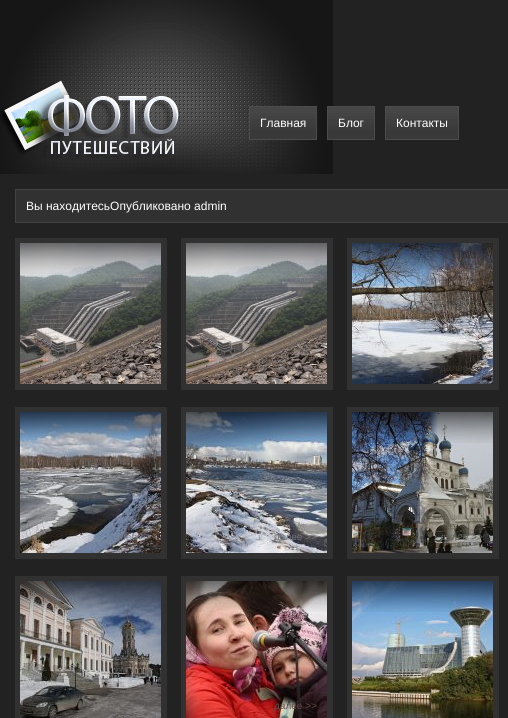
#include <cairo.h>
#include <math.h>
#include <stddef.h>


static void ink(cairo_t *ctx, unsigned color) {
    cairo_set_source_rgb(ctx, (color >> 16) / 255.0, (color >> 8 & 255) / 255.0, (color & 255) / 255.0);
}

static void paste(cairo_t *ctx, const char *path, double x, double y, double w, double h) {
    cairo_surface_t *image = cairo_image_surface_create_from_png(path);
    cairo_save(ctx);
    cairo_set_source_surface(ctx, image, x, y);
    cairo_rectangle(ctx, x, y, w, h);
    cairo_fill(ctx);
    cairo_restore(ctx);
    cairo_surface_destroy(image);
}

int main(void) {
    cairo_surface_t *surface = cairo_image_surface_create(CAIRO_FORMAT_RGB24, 508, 718);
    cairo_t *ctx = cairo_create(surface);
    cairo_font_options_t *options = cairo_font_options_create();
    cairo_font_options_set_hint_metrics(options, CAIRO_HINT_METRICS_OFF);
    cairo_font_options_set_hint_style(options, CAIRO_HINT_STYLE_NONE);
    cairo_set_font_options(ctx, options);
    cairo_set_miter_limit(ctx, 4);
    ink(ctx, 0x222222);
    cairo_paint(ctx);
    paste(ctx, "media/1.png", 0, 0, 333, 174);
    paste(ctx, "media/2.png", 0, 80, 179, 78);
    paste(ctx, "media/3.png", 250, 107, 66, 32);
    cairo_rectangle(ctx, 249.5, 106.5, 67, 33);
    ink(ctx, 0x4C4C4C);
    cairo_set_line_width(ctx, 1);
    cairo_stroke(ctx);
    cairo_select_font_face(ctx, "Liberation Sans", CAIRO_FONT_SLANT_NORMAL, CAIRO_FONT_WEIGHT_NORMAL);
    cairo_set_font_size(ctx, 12);
    ink(ctx, 0xFFFFFF);
    cairo_move_to(ctx, 260, 127);
    cairo_show_text(ctx, "Главная");
    paste(ctx, "media/4.png", 328, 107, 46, 32);
    cairo_rectangle(ctx, 327.5, 106.5, 47, 33);
    ink(ctx, 0x4C4C4C);
    cairo_stroke(ctx);
    ink(ctx, 0xFFFFFF);
    cairo_move_to(ctx, 338, 127);
    cairo_show_text(ctx, "Блог");
    paste(ctx, "media/5.png", 386, 107, 72, 32);
    cairo_rectangle(ctx, 385.5, 106.5, 73, 33);
    ink(ctx, 0x4C4C4C);
    cairo_stroke(ctx);
    ink(ctx, 0xFFFFFF);
    cairo_move_to(ctx, 396, 127);
    cairo_show_text(ctx, "Контакты");
    ink(ctx, 0x313131);
    cairo_rectangle(ctx, 15.5, 189.5, 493, 33);
    cairo_fill_preserve(ctx);
    ink(ctx, 0x424242);
    cairo_stroke(ctx);
    ink(ctx, 0xFFFFFF);
    cairo_move_to(ctx, 26, 210);
    cairo_show_text(ctx, "Вы находитесьОпубликовано admin");
    ink(ctx, 0x313131);
    cairo_rectangle(ctx, 15, 238, 152, 152);
    cairo_fill(ctx);
    paste(ctx, "media/6.png", 20, 243, 141, 141);
    paste(ctx, "media/7.png", 20, 243, 141, 31);
    cairo_set_font_size(ctx, 10);
    ink(ctx, 0x6B615D);
    cairo_move_to(ctx, 108, 371);
    cairo_show_text(ctx, "далее >>");
    ink(ctx, 0x313131);
    cairo_rectangle(ctx, 181, 238, 152, 152);
    cairo_fill(ctx);
    paste(ctx, "media/6.png", 186, 243, 141, 141);
    paste(ctx, "media/7.png", 186, 243, 141, 31);
    ink(ctx, 0x6B615D);
    cairo_move_to(ctx, 274, 371);
    cairo_show_text(ctx, "далее >>");
    ink(ctx, 0x313131);
    cairo_rectangle(ctx, 347, 238, 152, 152);
    cairo_fill(ctx);
    paste(ctx, "media/8.png", 352, 243, 141, 141);
    paste(ctx, "media/9.png", 352, 243, 141, 31);
    ink(ctx, 0x3B3734);
    cairo_move_to(ctx, 440, 371);
    cairo_show_text(ctx, "далее >>");
    ink(ctx, 0x313131);
    cairo_rectangle(ctx, 15, 407, 152, 152);
    cairo_fill(ctx);
    paste(ctx, "media/10.png", 20, 412, 141, 141);
    paste(ctx, "media/11.png", 20, 412, 141, 31);
    ink(ctx, 0x7B808D);
    cairo_move_to(ctx, 120, 540);
    cairo_show_text(ctx, "лее >>");
    ink(ctx, 0x313131);
    cairo_rectangle(ctx, 181, 407, 152, 152);
    cairo_fill(ctx);
    paste(ctx, "media/12.png", 186, 412, 141, 141);
    paste(ctx, "media/13.png", 186, 412, 141, 31);
    ink(ctx, 0x737379);
    cairo_move_to(ctx, 274, 540);
    cairo_show_text(ctx, "далее >>");
    ink(ctx, 0x313131);
    cairo_rectangle(ctx, 347, 407, 152, 152);
    cairo_fill(ctx);
    paste(ctx, "media/14.png", 352, 412, 141, 141);
    paste(ctx, "media/15.png", 352, 412, 141, 31);
    ink(ctx, 0x61615A);
    cairo_move_to(ctx, 440, 540);
    cairo_show_text(ctx, "далее >>");
    ink(ctx, 0x313131);
    cairo_rectangle(ctx, 15, 576, 152, 142);
    cairo_fill(ctx);
    paste(ctx, "media/16.png", 20, 581, 141, 137);
    paste(ctx, "media/17.png", 20, 581, 141, 31);
    cairo_rectangle(ctx, 181, 576, 152, 142);
    cairo_fill(ctx);
    paste(ctx, "media/18.png", 186, 581, 141, 137);
    paste(ctx, "media/19.png", 186, 581, 141, 31);
    ink(ctx, 0x5F4A45);
    cairo_move_to(ctx, 274, 709);
    cairo_show_text(ctx, "далее >>");
    ink(ctx, 0x313131);
    cairo_rectangle(ctx, 347, 576, 152, 142);
    cairo_fill(ctx);
    paste(ctx, "media/20.png", 352, 581, 141, 137);
    paste(ctx, "media/21.png", 352, 581, 141, 31);
    cairo_surface_write_to_png(surface, "image.png");
    cairo_font_options_destroy(options);
    cairo_destroy(ctx);
    cairo_surface_destroy(surface);
    return 0;
}
